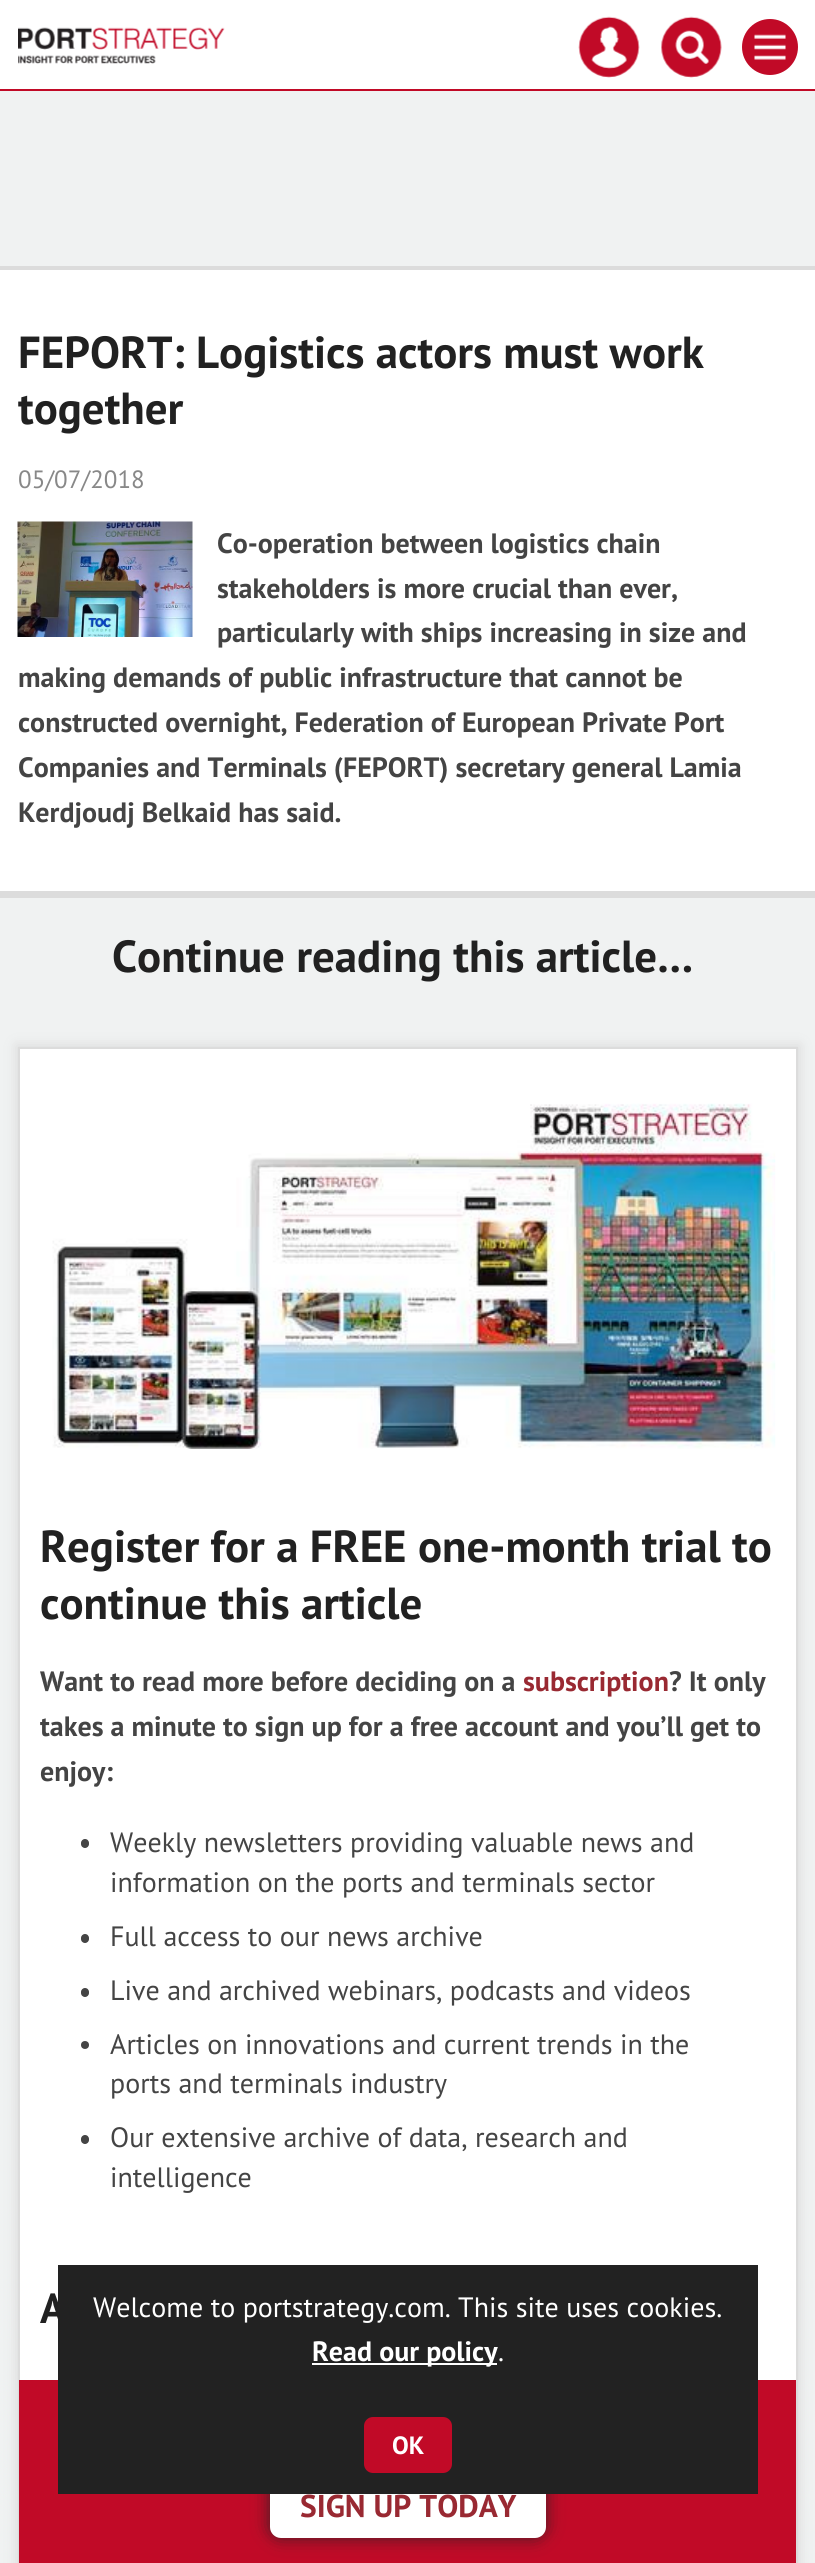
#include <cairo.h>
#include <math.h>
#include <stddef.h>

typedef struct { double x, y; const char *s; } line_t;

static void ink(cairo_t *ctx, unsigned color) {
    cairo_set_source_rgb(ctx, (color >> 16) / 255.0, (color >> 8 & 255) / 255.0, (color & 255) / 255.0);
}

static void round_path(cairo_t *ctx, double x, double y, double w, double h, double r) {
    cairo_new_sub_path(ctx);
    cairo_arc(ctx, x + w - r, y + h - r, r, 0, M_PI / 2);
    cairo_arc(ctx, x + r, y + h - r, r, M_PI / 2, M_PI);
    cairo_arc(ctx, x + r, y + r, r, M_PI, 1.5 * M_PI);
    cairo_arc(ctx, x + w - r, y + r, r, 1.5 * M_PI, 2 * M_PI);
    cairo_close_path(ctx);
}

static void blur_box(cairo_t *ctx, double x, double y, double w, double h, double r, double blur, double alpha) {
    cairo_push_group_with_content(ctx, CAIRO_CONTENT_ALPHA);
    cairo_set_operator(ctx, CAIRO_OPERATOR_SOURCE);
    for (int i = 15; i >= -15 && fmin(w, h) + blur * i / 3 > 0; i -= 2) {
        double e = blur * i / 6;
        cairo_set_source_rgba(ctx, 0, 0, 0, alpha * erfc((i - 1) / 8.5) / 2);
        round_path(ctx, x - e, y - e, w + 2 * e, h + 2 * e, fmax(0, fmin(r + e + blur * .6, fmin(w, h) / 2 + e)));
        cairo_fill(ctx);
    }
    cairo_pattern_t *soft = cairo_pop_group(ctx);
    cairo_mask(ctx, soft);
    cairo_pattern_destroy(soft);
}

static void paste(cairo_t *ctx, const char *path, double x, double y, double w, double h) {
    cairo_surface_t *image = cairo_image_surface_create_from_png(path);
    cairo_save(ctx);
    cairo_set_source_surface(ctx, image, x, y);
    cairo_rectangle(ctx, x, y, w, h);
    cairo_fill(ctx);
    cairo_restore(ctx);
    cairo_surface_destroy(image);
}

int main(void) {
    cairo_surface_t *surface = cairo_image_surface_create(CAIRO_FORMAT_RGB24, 815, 2563);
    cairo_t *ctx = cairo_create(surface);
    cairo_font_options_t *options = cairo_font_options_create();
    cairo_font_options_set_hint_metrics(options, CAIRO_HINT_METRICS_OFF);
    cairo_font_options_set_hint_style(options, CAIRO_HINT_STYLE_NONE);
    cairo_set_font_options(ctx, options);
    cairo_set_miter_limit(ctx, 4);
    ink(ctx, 0xFFFFFF);
    cairo_paint(ctx);
    ink(ctx, 0xC10A27);
    cairo_rectangle(ctx, 0, 89, 815, 2);
    cairo_fill(ctx);
    paste(ctx, "media/1.png", 18, 27, 207, 37);
    paste(ctx, "media/2.png", 578, 16, 62, 62);
    paste(ctx, "media/3.png", 661, 16, 61, 62);
    cairo_arc(ctx, 770, 47, 28, 0, 2 * M_PI);
    cairo_fill(ctx);
    paste(ctx, "media/4.png", 754, 34, 32, 26);
    ink(ctx, 0xF0F2F2);
    cairo_rectangle(ctx, 0, 91, 815, 175);
    cairo_fill(ctx);
    ink(ctx, 0xDCDCDC);
    cairo_rectangle(ctx, 0, 266, 815, 4);
    cairo_fill(ctx);
    cairo_select_font_face(ctx, "PT Sans", CAIRO_FONT_SLANT_NORMAL, CAIRO_FONT_WEIGHT_BOLD);
    cairo_set_font_size(ctx, 44.9);
    ink(ctx, 0x212121);
    cairo_move_to(ctx, 18, 368);
    cairo_show_text(ctx, "FEPORT: Logistics actors must work");
    cairo_move_to(ctx, 18, 424);
    cairo_show_text(ctx, "together");
    cairo_select_font_face(ctx, "PT Sans", CAIRO_FONT_SLANT_NORMAL, CAIRO_FONT_WEIGHT_NORMAL);
    cairo_set_font_size(ctx, 25);
    ink(ctx, 0x888888);
    cairo_move_to(ctx, 18, 488);
    cairo_show_text(ctx, "05/07/2018");
    paste(ctx, "media/5.png", 17, 521, 176, 116);
    cairo_select_font_face(ctx, "PT Sans", CAIRO_FONT_SLANT_NORMAL, CAIRO_FONT_WEIGHT_BOLD);
    cairo_set_font_size(ctx, 28);
    ink(ctx, 0x444444);
    {
        static const line_t items[] = {
            {217, 553, "Co-operation between logistics chain"},
            {217, 598, "stakeholders is more crucial than ever,"},
            {217, 642, "particularly with ships increasing in size and"},
            {18, 687, "making demands of public infrastructure that cannot be"},
            {18, 732, "constructed overnight, Federation of European Private Port"},
            {18, 777, "Companies and Terminals (FEPORT) secretary general Lamia"},
            {18, 822, "Kerdjoudj Belkaid has said."},
        };
        for (size_t i = 0; i < sizeof items / sizeof *items; i++) {
            cairo_move_to(ctx, items[i].x, items[i].y);
            cairo_show_text(ctx, items[i].s);
        }
    }
    ink(ctx, 0xF0F2F2);
    cairo_rectangle(ctx, 0, 898, 815, 1665);
    cairo_fill(ctx);
    ink(ctx, 0xDCDCDC);
    cairo_rectangle(ctx, 0, 891, 815, 7);
    cairo_fill(ctx);
    cairo_set_font_size(ctx, 44.9);
    ink(ctx, 0x212121);
    cairo_move_to(ctx, 112, 972);
    cairo_show_text(ctx, "Continue reading this article…");
    ink(ctx, 0xDCDCDC);
    blur_box(ctx, 16, 1045, 784, 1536, 0, 6, 1);
    ink(ctx, 0xFFFFFF);
    cairo_rectangle(ctx, 20, 1049, 776, 1331);
    cairo_fill(ctx);
    cairo_rectangle(ctx, 19, 1048, 778, 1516);
    ink(ctx, 0xDCDCDC);
    cairo_stroke(ctx);
    paste(ctx, "media/6.png", 52, 1103, 724, 346);
    ink(ctx, 0x212121);
    cairo_move_to(ctx, 40, 1562);
    cairo_show_text(ctx, "Register for a FREE one-month trial to");
    cairo_move_to(ctx, 40, 1619);
    cairo_show_text(ctx, "continue this article");
    cairo_set_font_size(ctx, 28);
    ink(ctx, 0x444444);
    cairo_move_to(ctx, 40, 1691);
    cairo_show_text(ctx, "Want to read more before deciding on a");
    ink(ctx, 0x992932);
    cairo_move_to(ctx, 523, 1691);
    cairo_show_text(ctx, "subscription");
    ink(ctx, 0x444444);
    {
        static const line_t items[] = {
            {669, 1691, "? It only"},
            {40, 1736, "takes a minute to sign up for a free account and you’ll get to"},
            {40, 1781, "enjoy:"},
        };
        for (size_t i = 0; i < sizeof items / sizeof *items; i++) {
            cairo_move_to(ctx, items[i].x, items[i].y);
            cairo_show_text(ctx, items[i].s);
        }
    }
    round_path(ctx, 81, 1839, 8, 9, 4);
    cairo_fill(ctx);
    cairo_select_font_face(ctx, "PT Sans", CAIRO_FONT_SLANT_NORMAL, CAIRO_FONT_WEIGHT_NORMAL);
    cairo_move_to(ctx, 110, 1852);
    cairo_show_text(ctx, "Weekly newsletters providing valuable news and");
    cairo_move_to(ctx, 110, 1892);
    cairo_show_text(ctx, "information on the ports and terminals sector");
    round_path(ctx, 81, 1934, 8, 9, 4);
    cairo_fill(ctx);
    cairo_move_to(ctx, 110, 1946);
    cairo_show_text(ctx, "Full access to our news archive");
    round_path(ctx, 81, 1988, 8, 9, 4);
    cairo_fill(ctx);
    cairo_move_to(ctx, 110, 2000);
    cairo_show_text(ctx, "Live and archived webinars, podcasts and videos");
    cairo_new_path(ctx);
    cairo_arc(ctx, 85, 2045, 4, 0, 2 * M_PI);
    cairo_fill(ctx);
    cairo_move_to(ctx, 110, 2054);
    cairo_show_text(ctx, "Articles on innovations and current trends in the");
    cairo_move_to(ctx, 110, 2093);
    cairo_show_text(ctx, "ports and terminals industry");
    round_path(ctx, 81, 2135, 8, 9, 4);
    cairo_fill(ctx);
    cairo_move_to(ctx, 110, 2147);
    cairo_show_text(ctx, "Our extensive archive of data, research and");
    cairo_move_to(ctx, 110, 2187);
    cairo_show_text(ctx, "intelligence");
    cairo_select_font_face(ctx, "PT Sans", CAIRO_FONT_SLANT_NORMAL, CAIRO_FONT_WEIGHT_BOLD);
    cairo_set_font_size(ctx, 42);
    ink(ctx, 0x212121);
    cairo_move_to(ctx, 40, 2323);
    cairo_show_text(ctx, "A");
    ink(ctx, 0xC10A27);
    cairo_rectangle(ctx, 19, 2380, 777, 183);
    cairo_fill(ctx);
    ink(ctx, 0x222222);
    blur_box(ctx, 271, 2476, 273, 60, 9, 9, 1);
    ink(ctx, 0xFFFFFF);
    round_path(ctx, 270, 2475, 276, 63, 11);
    cairo_fill(ctx);
    cairo_set_font_size(ctx, 31.5);
    ink(ctx, 0x992932);
    cairo_move_to(ctx, 300, 2517);
    cairo_show_text(ctx, "SIGN UP TODAY");
    ink(ctx, 0x222222);
    cairo_rectangle(ctx, 58, 2265, 700, 229);
    cairo_fill(ctx);
    cairo_select_font_face(ctx, "PT Sans", CAIRO_FONT_SLANT_NORMAL, CAIRO_FONT_WEIGHT_NORMAL);
    cairo_set_font_size(ctx, 28);
    ink(ctx, 0xFFFFFF);
    cairo_move_to(ctx, 93, 2317);
    cairo_show_text(ctx, "Welcome to portstrategy.com. This site uses cookies.");
    cairo_rectangle(ctx, 312, 2363, 185, 2);
    cairo_fill(ctx);
    cairo_select_font_face(ctx, "PT Sans", CAIRO_FONT_SLANT_NORMAL, CAIRO_FONT_WEIGHT_BOLD);
    cairo_move_to(ctx, 312, 2361);
    cairo_show_text(ctx, "Read our policy");
    cairo_select_font_face(ctx, "PT Sans", CAIRO_FONT_SLANT_NORMAL, CAIRO_FONT_WEIGHT_NORMAL);
    cairo_move_to(ctx, 498, 2361);
    cairo_show_text(ctx, ".");
    ink(ctx, 0xC10A27);
    round_path(ctx, 364, 2417, 88, 56, 9);
    cairo_fill(ctx);
    cairo_select_font_face(ctx, "PT Sans", CAIRO_FONT_SLANT_NORMAL, CAIRO_FONT_WEIGHT_BOLD);
    cairo_set_font_size(ctx, 25);
    ink(ctx, 0xFFFFFF);
    cairo_move_to(ctx, 392, 2454);
    cairo_show_text(ctx, "OK");
    cairo_surface_write_to_png(surface, "image.png");
    cairo_font_options_destroy(options);
    cairo_destroy(ctx);
    cairo_surface_destroy(surface);
    return 0;
}
